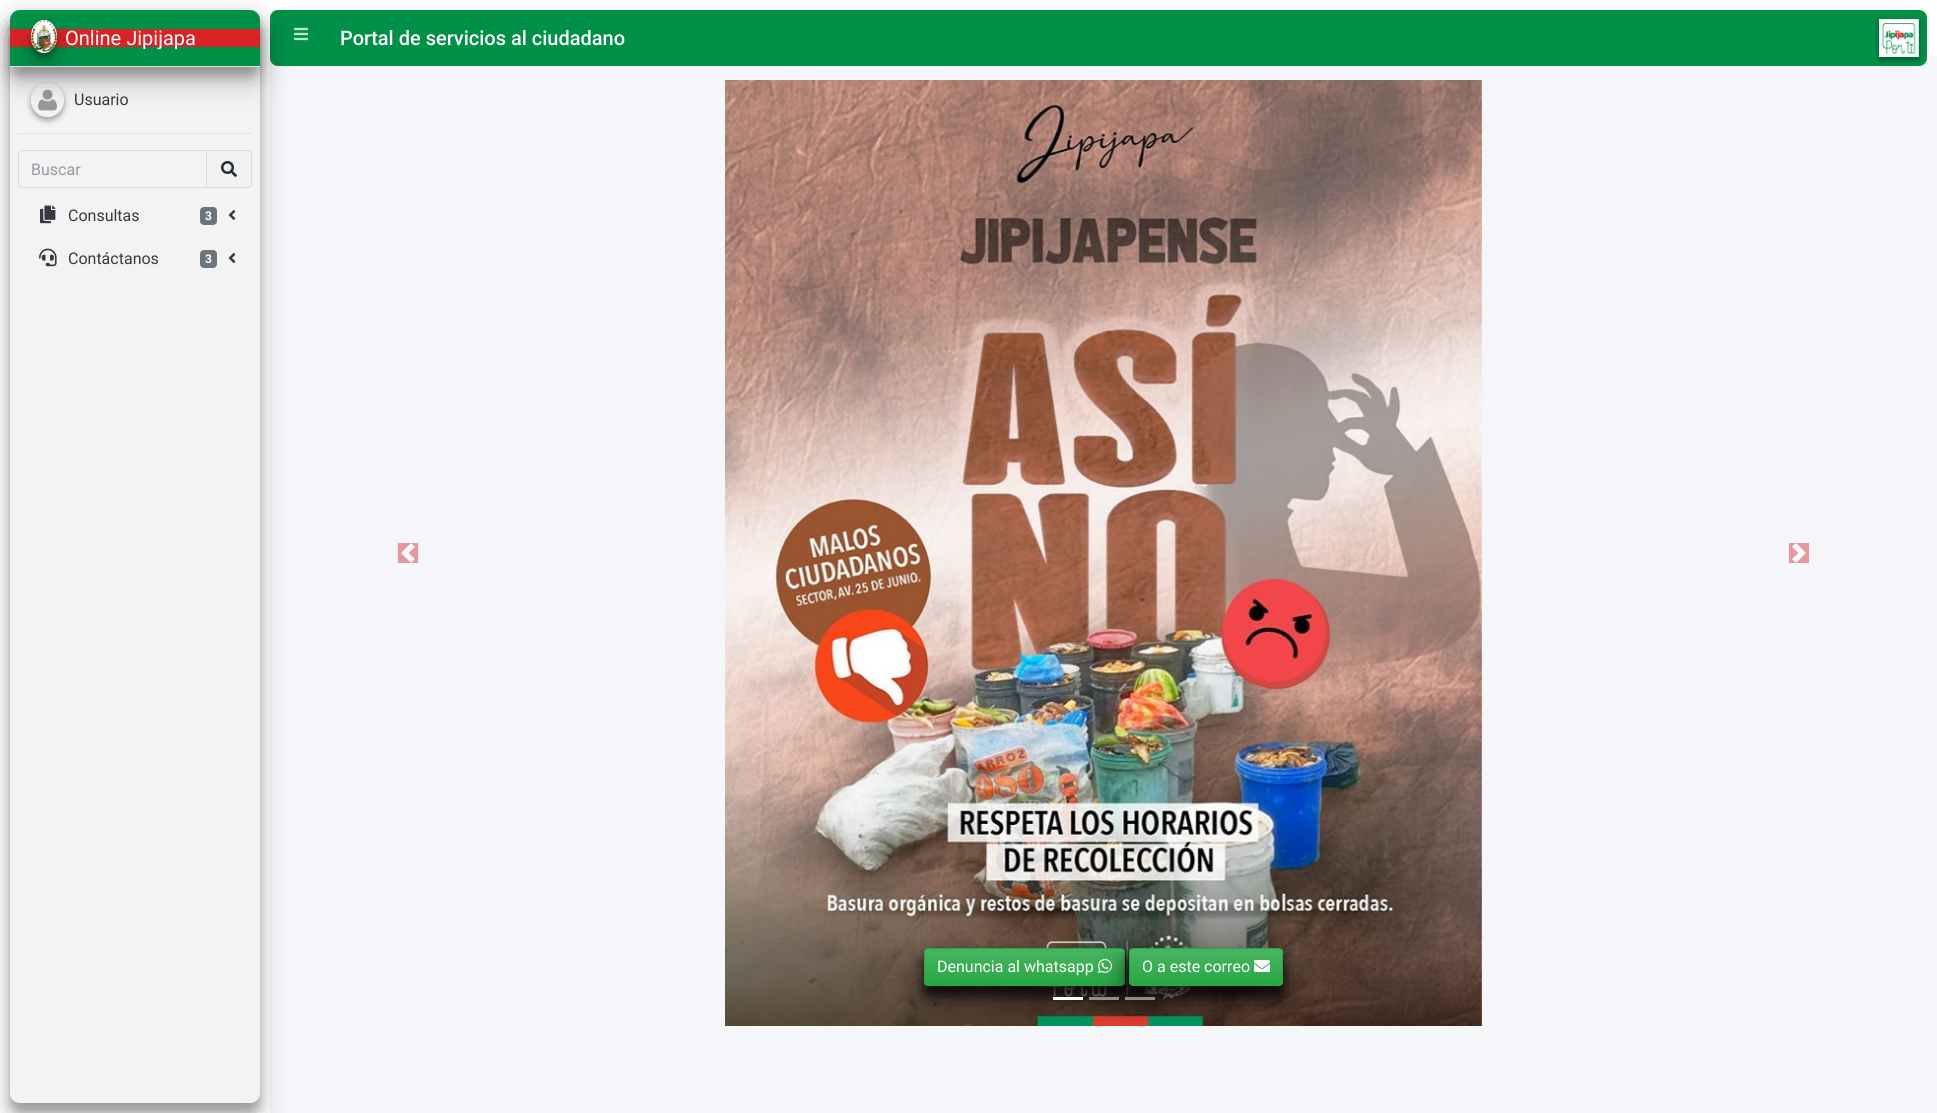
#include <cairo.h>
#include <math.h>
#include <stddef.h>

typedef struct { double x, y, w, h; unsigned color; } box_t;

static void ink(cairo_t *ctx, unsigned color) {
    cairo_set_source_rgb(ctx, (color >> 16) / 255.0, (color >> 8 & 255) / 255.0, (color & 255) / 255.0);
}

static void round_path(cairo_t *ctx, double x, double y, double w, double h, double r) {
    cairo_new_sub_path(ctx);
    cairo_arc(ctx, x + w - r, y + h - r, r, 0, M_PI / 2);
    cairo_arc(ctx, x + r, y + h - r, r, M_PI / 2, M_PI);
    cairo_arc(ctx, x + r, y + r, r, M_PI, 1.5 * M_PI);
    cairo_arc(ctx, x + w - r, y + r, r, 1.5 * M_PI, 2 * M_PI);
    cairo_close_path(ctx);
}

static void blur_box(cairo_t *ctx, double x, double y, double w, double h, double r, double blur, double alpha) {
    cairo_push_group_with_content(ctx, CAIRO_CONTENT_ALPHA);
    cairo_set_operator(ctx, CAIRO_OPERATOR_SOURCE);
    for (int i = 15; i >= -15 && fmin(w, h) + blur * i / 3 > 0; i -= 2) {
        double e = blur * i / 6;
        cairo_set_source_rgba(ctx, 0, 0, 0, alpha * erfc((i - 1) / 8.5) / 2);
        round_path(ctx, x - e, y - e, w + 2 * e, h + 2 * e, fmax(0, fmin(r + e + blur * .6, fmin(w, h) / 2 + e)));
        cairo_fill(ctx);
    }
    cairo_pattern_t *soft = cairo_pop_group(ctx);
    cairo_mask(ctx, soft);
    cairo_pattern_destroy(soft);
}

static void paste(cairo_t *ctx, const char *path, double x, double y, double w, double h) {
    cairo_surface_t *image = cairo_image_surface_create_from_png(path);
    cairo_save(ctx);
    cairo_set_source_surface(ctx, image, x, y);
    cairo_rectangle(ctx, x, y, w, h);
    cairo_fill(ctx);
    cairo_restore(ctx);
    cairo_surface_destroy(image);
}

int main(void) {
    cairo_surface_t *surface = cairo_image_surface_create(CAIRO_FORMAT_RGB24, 1937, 1113);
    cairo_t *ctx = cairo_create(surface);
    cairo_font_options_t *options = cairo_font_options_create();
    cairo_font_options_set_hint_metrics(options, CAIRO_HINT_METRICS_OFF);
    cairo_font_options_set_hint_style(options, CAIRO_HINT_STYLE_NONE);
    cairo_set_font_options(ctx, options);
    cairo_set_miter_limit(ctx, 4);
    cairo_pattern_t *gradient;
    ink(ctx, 0xFFFFFF);
    cairo_paint(ctx);
    ink(ctx, 0xF4F6F9);
    cairo_rectangle(ctx, 270, 56, 1667, 1057);
    cairo_fill(ctx);
    ink(ctx, 0x009048);
    round_path(ctx, 270, 10, 1657, 56, 8);
    cairo_fill(ctx);
    ink(ctx, 0x000000);
    blur_box(ctx, 10, 20, 250, 1093, 10, 5, 0.22);
    paste(ctx, "media/7.png", 294, 27, 14, 14);
    blur_box(ctx, 10, 24, 250, 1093, 10, 14, 0.25);
    ink(ctx, 0xF3F3F3);
    round_path(ctx, 10, 10, 250, 1093, 10);
    cairo_fill(ctx);
    cairo_save(ctx);
    cairo_set_fill_rule(ctx, CAIRO_FILL_RULE_EVEN_ODD);
    cairo_new_path(ctx);
    cairo_move_to(ctx, 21, 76);
    cairo_line_to(ctx, 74, 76);
    cairo_line_to(ctx, 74, 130);
    cairo_line_to(ctx, 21, 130);
    cairo_close_path(ctx);
    cairo_move_to(ctx, 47.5, 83);
    cairo_curve_to(ctx, 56.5, 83, 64, 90.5, 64, 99.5);
    cairo_line_to(ctx, 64, 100.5);
    cairo_curve_to(ctx, 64, 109.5, 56.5, 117, 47.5, 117);
    cairo_curve_to(ctx, 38.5, 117, 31, 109.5, 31, 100.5);
    cairo_line_to(ctx, 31, 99.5);
    cairo_curve_to(ctx, 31, 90.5, 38.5, 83, 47.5, 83);
    cairo_close_path(ctx);
    cairo_clip(ctx);
    ink(ctx, 0x000000);
    blur_box(ctx, 31, 86, 33, 34, 16.5, 3, 0.23);
    blur_box(ctx, 31, 86, 33, 34, 16.5, 3, 0.16);
    cairo_restore(ctx);
    paste(ctx, "media/2.png", 37, 89, 21, 22);
    ink(ctx, 0x000000);
    blur_box(ctx, 10, 20, 250, 57, 10, 5, 0.22);
    blur_box(ctx, 10, 24, 250, 57, 10, 14, 0.25);
    ink(ctx, 0x009048);
    cairo_new_path(ctx);
    cairo_move_to(ctx, 20, 10);
    cairo_line_to(ctx, 250, 10);
    cairo_curve_to(ctx, 255.5, 10, 260, 14.5, 260, 20);
    cairo_line_to(ctx, 260, 29);
    cairo_line_to(ctx, 10, 29);
    cairo_line_to(ctx, 10, 20);
    cairo_curve_to(ctx, 10, 14.5, 14.5, 10, 20, 10);
    cairo_close_path(ctx);
    cairo_fill(ctx);
    {
        static const box_t items[] = {
            {10, 29, 250, 18, 0xDB2227},
            {10, 47, 250, 19, 0x009048},
            {10, 66, 250, 1, 0xDEE2E6},
        };
        for (size_t i = 0; i < sizeof items / sizeof *items; i++) {
            ink(ctx, items[i].color);
            cairo_rectangle(ctx, items[i].x, items[i].y, items[i].w, items[i].h);
            cairo_fill(ctx);
        }
    }
    ink(ctx, 0x000000);
    blur_box(ctx, 31, 26, 26, 33, 13, 3, 0.23);
    cairo_save(ctx);
    cairo_new_path(ctx);
    cairo_move_to(ctx, 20, 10);
    cairo_line_to(ctx, 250, 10);
    cairo_curve_to(ctx, 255.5, 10, 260, 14.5, 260, 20);
    cairo_line_to(ctx, 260, 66);
    cairo_line_to(ctx, 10, 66);
    cairo_line_to(ctx, 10, 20);
    cairo_curve_to(ctx, 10, 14.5, 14.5, 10, 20, 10);
    cairo_close_path(ctx);
    cairo_clip(ctx);
    blur_box(ctx, 31, 30, 26, 33, 13, 10, 0.19);
    cairo_restore(ctx);
    paste(ctx, "media/1.png", 31, 20, 26, 33);
    cairo_select_font_face(ctx, "Roboto", CAIRO_FONT_SLANT_NORMAL, CAIRO_FONT_WEIGHT_NORMAL);
    cairo_set_font_size(ctx, 20);
    ink(ctx, 0xFFFFFF);
    cairo_move_to(ctx, 65, 45);
    cairo_show_text(ctx, "Online Jipijapa");
    ink(ctx, 0xDEE2E6);
    cairo_rectangle(ctx, 18, 133, 234, 1);
    cairo_fill(ctx);
    cairo_set_font_size(ctx, 16);
    ink(ctx, 0x343A40);
    cairo_move_to(ctx, 74, 105);
    cairo_show_text(ctx, "Usuario");
    cairo_new_path(ctx);
    cairo_move_to(ctx, 22, 150.5);
    cairo_line_to(ctx, 206.5, 150.5);
    cairo_line_to(ctx, 206.5, 187.5);
    cairo_line_to(ctx, 22, 187.5);
    cairo_curve_to(ctx, 20, 187.5, 18.5, 186, 18.5, 184);
    cairo_line_to(ctx, 18.5, 154);
    cairo_curve_to(ctx, 18.5, 152, 20, 150.5, 22, 150.5);
    cairo_close_path(ctx);
    ink(ctx, 0xD9D9D9);
    cairo_set_line_width(ctx, 1);
    cairo_stroke(ctx);
    ink(ctx, 0x939BA2);
    cairo_move_to(ctx, 31, 175);
    cairo_show_text(ctx, "Buscar");
    ink(ctx, 0xF2F2F2);
    cairo_new_path(ctx);
    cairo_move_to(ctx, 206.5, 150.5);
    cairo_line_to(ctx, 248, 150.5);
    cairo_curve_to(ctx, 250, 150.5, 251.5, 152, 251.5, 154);
    cairo_line_to(ctx, 251.5, 184);
    cairo_curve_to(ctx, 251.5, 186, 250, 187.5, 248, 187.5);
    cairo_line_to(ctx, 206.5, 187.5);
    cairo_close_path(ctx);
    cairo_fill_preserve(ctx);
    ink(ctx, 0xD9D9D9);
    cairo_stroke(ctx);
    paste(ctx, "media/3.png", 221, 161, 16, 16);
    paste(ctx, "media/4.png", 40, 205, 16, 19);
    ink(ctx, 0x343A40);
    cairo_move_to(ctx, 68, 221);
    cairo_show_text(ctx, "Consultas");
    ink(ctx, 0x6C757D);
    round_path(ctx, 200, 207, 17, 18, 4);
    cairo_fill(ctx);
    cairo_select_font_face(ctx, "Roboto", CAIRO_FONT_SLANT_NORMAL, CAIRO_FONT_WEIGHT_BOLD);
    cairo_set_font_size(ctx, 12);
    ink(ctx, 0xFFFFFF);
    cairo_move_to(ctx, 205, 220);
    cairo_show_text(ctx, "3");
    paste(ctx, "media/5.png", 228, 210, 8, 10);
    paste(ctx, "media/6.png", 39, 248, 18, 19);
    cairo_select_font_face(ctx, "Roboto", CAIRO_FONT_SLANT_NORMAL, CAIRO_FONT_WEIGHT_NORMAL);
    cairo_set_font_size(ctx, 16);
    ink(ctx, 0x343A40);
    cairo_move_to(ctx, 68, 264);
    cairo_show_text(ctx, "Contáctanos");
    ink(ctx, 0x6C757D);
    round_path(ctx, 200, 250, 17, 18, 4);
    cairo_fill(ctx);
    cairo_select_font_face(ctx, "Roboto", CAIRO_FONT_SLANT_NORMAL, CAIRO_FONT_WEIGHT_BOLD);
    cairo_set_font_size(ctx, 12);
    ink(ctx, 0xFFFFFF);
    cairo_move_to(ctx, 205, 263);
    cairo_show_text(ctx, "3");
    paste(ctx, "media/5.png", 228, 253, 8, 10);
    cairo_select_font_face(ctx, "Roboto Medium", CAIRO_FONT_SLANT_NORMAL, CAIRO_FONT_WEIGHT_NORMAL);
    cairo_set_font_size(ctx, 20);
    cairo_move_to(ctx, 340, 45);
    cairo_show_text(ctx, "Portal de servicios al ciudadano");
    ink(ctx, 0x000000);
    blur_box(ctx, 1879, 22, 40, 38, 0, 3, 0.23);
    blur_box(ctx, 1879, 22, 40, 38, 0, 3, 0.16);
    paste(ctx, "media/8.png", 1879, 19, 40, 38);
    ink(ctx, 0xE8969F);
    cairo_rectangle(ctx, 398, 543, 20, 20);
    cairo_fill(ctx);
    ink(ctx, 0xFAFBFC);
    cairo_new_path(ctx);
    cairo_move_to(ctx, 411, 543);
    cairo_line_to(ctx, 401, 553);
    cairo_line_to(ctx, 411, 563);
    cairo_line_to(ctx, 415, 559);
    cairo_line_to(ctx, 408.5, 553);
    cairo_line_to(ctx, 415, 547);
    cairo_close_path(ctx);
    cairo_fill(ctx);
    ink(ctx, 0xE8969F);
    cairo_rectangle(ctx, 1789, 543, 20, 20);
    cairo_fill(ctx);
    ink(ctx, 0xFAFBFC);
    cairo_new_path(ctx);
    cairo_move_to(ctx, 1796, 543);
    cairo_line_to(ctx, 1792, 547);
    cairo_line_to(ctx, 1798.5, 553);
    cairo_line_to(ctx, 1792, 559);
    cairo_line_to(ctx, 1796, 563);
    cairo_line_to(ctx, 1806, 553);
    cairo_close_path(ctx);
    cairo_fill(ctx);
    paste(ctx, "media/9.png", 725, 80, 757, 946);
    ink(ctx, 0x000000);
    blur_box(ctx, 924, 958, 201, 38, 4, 5, 0.6);
    cairo_save(ctx);
    cairo_rectangle(ctx, 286, 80, 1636, 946);
    cairo_clip(ctx);
    blur_box(ctx, 924, 962, 201, 38, 4, 14, 0.6);
    cairo_restore(ctx);
    cairo_save(ctx);
    round_path(ctx, 924, 948, 201, 38, 4);
    cairo_clip(ctx);
    gradient = cairo_pattern_create_linear(1025, 949, 1025, 985);
    cairo_pattern_add_color_stop_rgba(gradient, 0, 0.282, 0.706, 0.38, 1);
    cairo_pattern_add_color_stop_rgba(gradient, 1, 0.157, 0.655, 0.271, 1);
    cairo_set_source(ctx, gradient);
    cairo_pattern_destroy(gradient);
    cairo_rectangle(ctx, 924, 949, 201, 36);
    cairo_fill(ctx);
    cairo_restore(ctx);
    round_path(ctx, 924.5, 948.5, 200, 37, 3.5);
    ink(ctx, 0x28A745);
    cairo_stroke(ctx);
    cairo_select_font_face(ctx, "Roboto", CAIRO_FONT_SLANT_NORMAL, CAIRO_FONT_WEIGHT_NORMAL);
    cairo_set_font_size(ctx, 16);
    ink(ctx, 0xFFFFFF);
    cairo_move_to(ctx, 937, 972);
    cairo_show_text(ctx, "Denuncia al whatsapp");
    paste(ctx, "media/10.png", 1098, 959, 14, 14);
    ink(ctx, 0x000000);
    blur_box(ctx, 1129, 958, 154, 38, 4, 5, 0.6);
    cairo_save(ctx);
    cairo_rectangle(ctx, 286, 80, 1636, 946);
    cairo_clip(ctx);
    blur_box(ctx, 1129, 962, 154, 38, 4, 14, 0.6);
    cairo_restore(ctx);
    cairo_save(ctx);
    round_path(ctx, 1129, 948, 154, 38, 4);
    cairo_clip(ctx);
    gradient = cairo_pattern_create_linear(1206, 949, 1206, 985);
    cairo_pattern_add_color_stop_rgba(gradient, 0, 0.282, 0.706, 0.38, 1);
    cairo_pattern_add_color_stop_rgba(gradient, 1, 0.157, 0.655, 0.271, 1);
    cairo_set_source(ctx, gradient);
    cairo_pattern_destroy(gradient);
    cairo_rectangle(ctx, 1129, 949, 154, 36);
    cairo_fill(ctx);
    cairo_restore(ctx);
    round_path(ctx, 1129.5, 948.5, 153, 37, 3.5);
    ink(ctx, 0x28A745);
    cairo_stroke(ctx);
    ink(ctx, 0xFFFFFF);
    cairo_move_to(ctx, 1142, 972);
    cairo_show_text(ctx, "O a este correo");
    paste(ctx, "media/11.png", 1254, 960, 16, 12);
    cairo_rectangle(ctx, 1053, 997, 30, 3);
    cairo_fill(ctx);
    cairo_set_source_rgba(ctx, 1, 1, 1, 0.5);
    cairo_rectangle(ctx, 1089, 997, 30, 3);
    cairo_fill(ctx);
    cairo_rectangle(ctx, 1125, 997, 30, 3);
    cairo_fill(ctx);
    cairo_surface_write_to_png(surface, "image.png");
    cairo_font_options_destroy(options);
    cairo_destroy(ctx);
    cairo_surface_destroy(surface);
    return 0;
}
